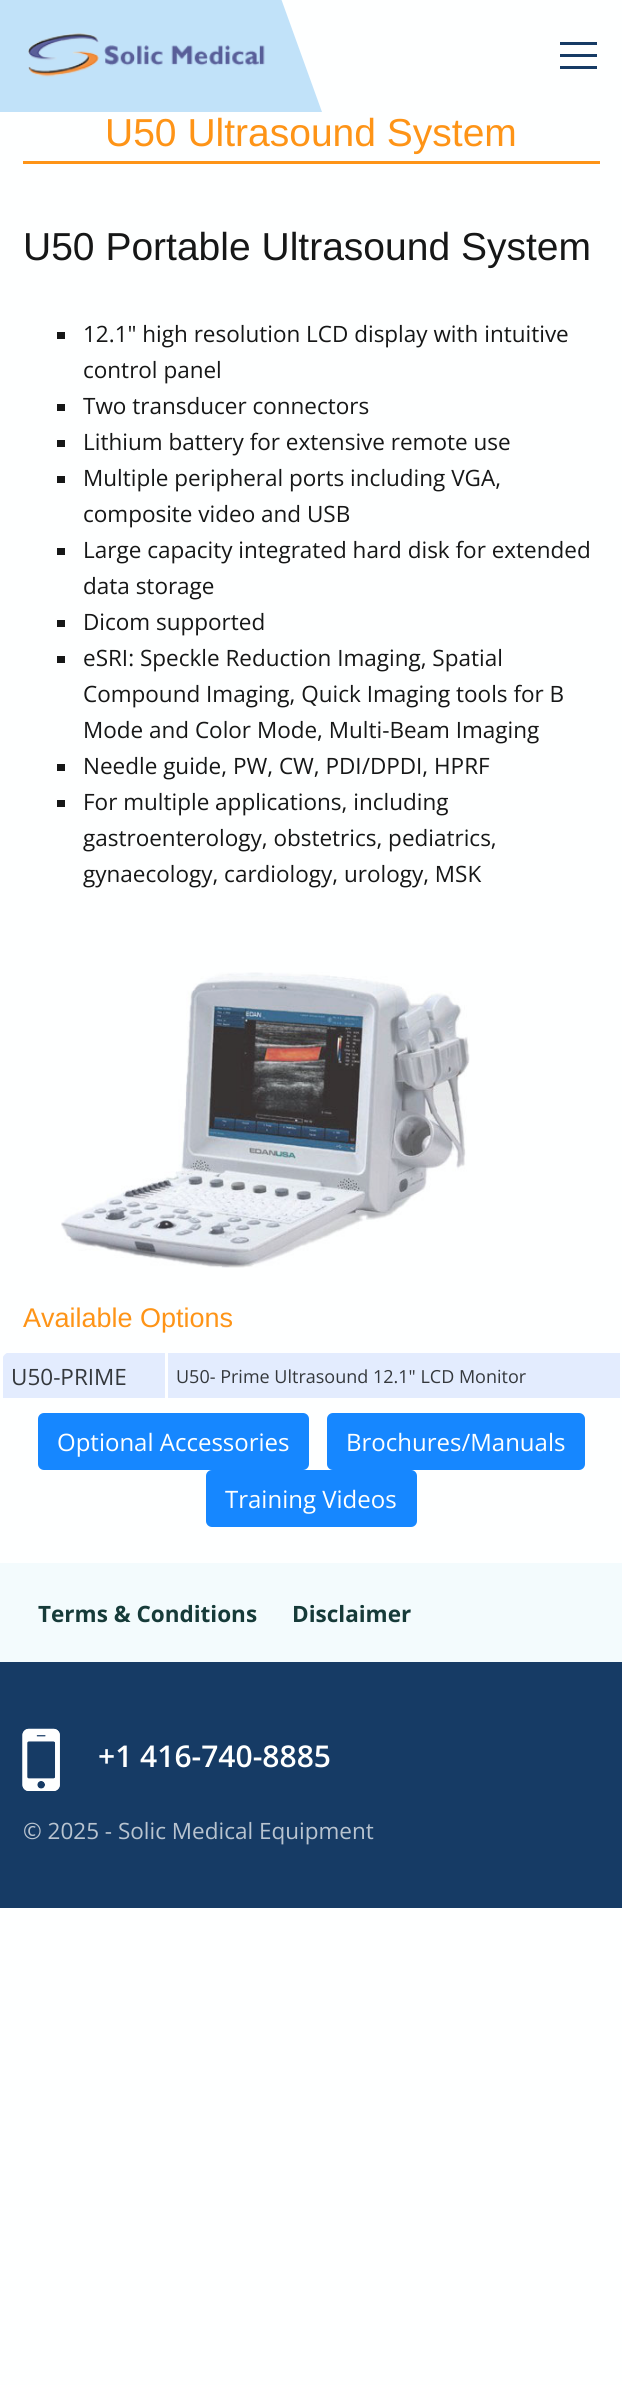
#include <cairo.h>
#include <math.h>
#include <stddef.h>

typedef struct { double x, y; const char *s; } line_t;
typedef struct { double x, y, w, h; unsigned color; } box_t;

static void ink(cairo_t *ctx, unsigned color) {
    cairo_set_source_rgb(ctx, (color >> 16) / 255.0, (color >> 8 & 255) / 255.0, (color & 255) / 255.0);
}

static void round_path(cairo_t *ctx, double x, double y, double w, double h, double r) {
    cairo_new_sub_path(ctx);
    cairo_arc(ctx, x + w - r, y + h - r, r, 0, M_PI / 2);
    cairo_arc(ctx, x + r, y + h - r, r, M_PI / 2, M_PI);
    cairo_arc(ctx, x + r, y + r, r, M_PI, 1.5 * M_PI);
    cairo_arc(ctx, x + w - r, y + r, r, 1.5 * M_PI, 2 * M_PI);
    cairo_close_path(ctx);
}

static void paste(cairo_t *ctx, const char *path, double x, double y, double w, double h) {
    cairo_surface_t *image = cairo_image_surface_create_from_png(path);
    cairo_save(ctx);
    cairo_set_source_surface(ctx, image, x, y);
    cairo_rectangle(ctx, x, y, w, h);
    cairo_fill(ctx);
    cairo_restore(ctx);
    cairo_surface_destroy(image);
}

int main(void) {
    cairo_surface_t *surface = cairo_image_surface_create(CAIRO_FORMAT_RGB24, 622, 2385);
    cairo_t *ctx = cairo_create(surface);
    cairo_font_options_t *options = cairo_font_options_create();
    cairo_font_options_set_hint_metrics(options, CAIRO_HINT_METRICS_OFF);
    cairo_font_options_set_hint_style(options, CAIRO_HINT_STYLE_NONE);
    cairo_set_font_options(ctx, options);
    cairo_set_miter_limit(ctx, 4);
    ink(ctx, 0xFEFFFF);
    cairo_paint(ctx);
    ink(ctx, 0xC1E2F9);
    cairo_new_path(ctx);
    cairo_move_to(ctx, -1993, -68);
    cairo_line_to(ctx, 257, -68);
    cairo_line_to(ctx, 322, 112);
    cairo_line_to(ctx, -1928, 112);
    cairo_close_path(ctx);
    cairo_fill(ctx);
    paste(ctx, "media/1.png", 28, 33, 237, 44);
    {
        static const box_t items[] = {
            {560, 54, 37, 3, 0x163B65},
            {560, 42, 37, 3, 0x163B65},
            {560, 66, 37, 3, 0x163B65},
        };
        for (size_t i = 0; i < sizeof items / sizeof *items; i++) {
            ink(ctx, items[i].color);
            cairo_rectangle(ctx, items[i].x, items[i].y, items[i].w, items[i].h);
            cairo_fill(ctx);
        }
    }
    cairo_select_font_face(ctx, "Liberation Sans", CAIRO_FONT_SLANT_NORMAL, CAIRO_FONT_WEIGHT_NORMAL);
    cairo_set_font_size(ctx, 39);
    ink(ctx, 0xFE9417);
    cairo_move_to(ctx, 105, 146);
    cairo_show_text(ctx, "U50 Ultrasound System");
    cairo_rectangle(ctx, 23, 161, 577, 3);
    cairo_fill(ctx);
    ink(ctx, 0x161717);
    cairo_move_to(ctx, 23, 260);
    cairo_show_text(ctx, "U50 Portable Ultrasound System");
    cairo_rectangle(ctx, 57, 332, 8, 7);
    cairo_fill(ctx);
    cairo_select_font_face(ctx, "Open Sans", CAIRO_FONT_SLANT_NORMAL, CAIRO_FONT_WEIGHT_NORMAL);
    cairo_set_font_size(ctx, 22.5);
    cairo_move_to(ctx, 83, 342);
    cairo_show_text(ctx, "12.1\" high resolution LCD display with intuitive");
    cairo_move_to(ctx, 83, 378);
    cairo_show_text(ctx, "control panel");
    cairo_rectangle(ctx, 57, 404, 8, 7);
    cairo_fill(ctx);
    cairo_move_to(ctx, 83, 414);
    cairo_show_text(ctx, "Two transducer connectors");
    cairo_rectangle(ctx, 57, 440, 8, 7);
    cairo_fill(ctx);
    cairo_move_to(ctx, 83, 450);
    cairo_show_text(ctx, "Lithium battery for extensive remote use");
    cairo_rectangle(ctx, 57, 476, 8, 7);
    cairo_fill(ctx);
    cairo_move_to(ctx, 83, 486);
    cairo_show_text(ctx, "Multiple peripheral ports including VGA,");
    cairo_move_to(ctx, 83, 522);
    cairo_show_text(ctx, "composite video and USB");
    cairo_rectangle(ctx, 57, 548, 8, 7);
    cairo_fill(ctx);
    cairo_move_to(ctx, 83, 558);
    cairo_show_text(ctx, "Large capacity integrated hard disk for extended");
    cairo_move_to(ctx, 83, 594);
    cairo_show_text(ctx, "data storage");
    cairo_rectangle(ctx, 57, 620, 8, 7);
    cairo_fill(ctx);
    cairo_move_to(ctx, 83, 630);
    cairo_show_text(ctx, "Dicom supported");
    cairo_rectangle(ctx, 57, 656, 8, 7);
    cairo_fill(ctx);
    {
        static const line_t items[] = {
            {83, 666, "eSRI: Speckle Reduction Imaging, Spatial"},
            {83, 702, "Compound Imaging, Quick Imaging tools for B"},
            {83, 738, "Mode and Color Mode, Multi-Beam Imaging"},
        };
        for (size_t i = 0; i < sizeof items / sizeof *items; i++) {
            cairo_move_to(ctx, items[i].x, items[i].y);
            cairo_show_text(ctx, items[i].s);
        }
    }
    cairo_rectangle(ctx, 57, 764, 8, 7);
    cairo_fill(ctx);
    cairo_move_to(ctx, 83, 774);
    cairo_show_text(ctx, "Needle guide, PW, CW, PDI/DPDI, HPRF");
    cairo_rectangle(ctx, 57, 800, 8, 7);
    cairo_fill(ctx);
    {
        static const line_t items[] = {
            {83, 810, "For multiple applications, including"},
            {83, 846, "gastroenterology, obstetrics, pediatrics,"},
            {83, 882, "gynaecology, cardiology, urology, MSK"},
        };
        for (size_t i = 0; i < sizeof items / sizeof *items; i++) {
            cairo_move_to(ctx, items[i].x, items[i].y);
            cairo_show_text(ctx, items[i].s);
        }
    }
    paste(ctx, "media/2.png", 61, 972, 409, 296);
    cairo_select_font_face(ctx, "Liberation Sans", CAIRO_FONT_SLANT_NORMAL, CAIRO_FONT_WEIGHT_NORMAL);
    cairo_set_font_size(ctx, 27);
    ink(ctx, 0xFE9417);
    cairo_move_to(ctx, 23, 1327);
    cairo_show_text(ctx, "Available Options");
    ink(ctx, 0xE3ECFE);
    cairo_new_path(ctx);
    cairo_move_to(ctx, 11, 1352);
    cairo_line_to(ctx, 621, 1352);
    cairo_line_to(ctx, 621, 1400);
    cairo_line_to(ctx, 2, 1400);
    cairo_line_to(ctx, 2, 1361);
    cairo_curve_to(ctx, 2, 1356, 6, 1352, 11, 1352);
    cairo_close_path(ctx);
    cairo_fill(ctx);
    {
        static const box_t items[] = {
            {165, 1352, 457, 1, 0xFEFFFF},
            {620, 1350, 1, 51, 0xFEFFFF},
            {165, 1398, 457, 2, 0xFEFFFF},
            {165, 1350, 3, 51, 0xFEFFFF},
            {0, 1352, 168, 1, 0xFEFFFF},
            {0, 1398, 168, 2, 0xFEFFFF},
            {2, 1350, 1, 51, 0xFEFFFF},
        };
        for (size_t i = 0; i < sizeof items / sizeof *items; i++) {
            ink(ctx, items[i].color);
            cairo_rectangle(ctx, items[i].x, items[i].y, items[i].w, items[i].h);
            cairo_fill(ctx);
        }
    }
    cairo_select_font_face(ctx, "Open Sans", CAIRO_FONT_SLANT_NORMAL, CAIRO_FONT_WEIGHT_NORMAL);
    cairo_set_font_size(ctx, 22.5);
    ink(ctx, 0x34383C);
    cairo_move_to(ctx, 11, 1385);
    cairo_show_text(ctx, "U50-PRIME");
    cairo_set_font_size(ctx, 18);
    cairo_move_to(ctx, 176, 1383);
    cairo_show_text(ctx, "U50- Prime Ultrasound 12.1\" LCD Monitor");
    ink(ctx, 0x1687FF);
    round_path(ctx, 39, 1414, 269, 55, 5);
    cairo_fill_preserve(ctx);
    cairo_stroke(ctx);
    cairo_set_font_size(ctx, 24);
    ink(ctx, 0xFEFFFF);
    cairo_move_to(ctx, 57, 1451);
    cairo_show_text(ctx, "Optional Accessories");
    ink(ctx, 0x1687FF);
    round_path(ctx, 328, 1414, 256, 55, 5);
    cairo_fill_preserve(ctx);
    cairo_stroke(ctx);
    ink(ctx, 0xFEFFFF);
    cairo_move_to(ctx, 346, 1451);
    cairo_show_text(ctx, "Brochures/Manuals");
    ink(ctx, 0x1687FF);
    round_path(ctx, 207, 1471, 209, 55, 5);
    cairo_fill_preserve(ctx);
    cairo_stroke(ctx);
    ink(ctx, 0xFEFFFF);
    cairo_move_to(ctx, 225, 1508);
    cairo_show_text(ctx, "Training Videos");
    ink(ctx, 0xF3FBFD);
    cairo_rectangle(ctx, 0, 1563, 622, 99);
    cairo_fill(ctx);
    cairo_select_font_face(ctx, "Open Sans", CAIRO_FONT_SLANT_NORMAL, CAIRO_FONT_WEIGHT_BOLD);
    cairo_set_font_size(ctx, 22.5);
    ink(ctx, 0x163B39);
    cairo_move_to(ctx, 38, 1622);
    cairo_show_text(ctx, "Terms & Conditions");
    cairo_move_to(ctx, 292, 1622);
    cairo_show_text(ctx, "Disclaimer");
    ink(ctx, 0x163B65);
    cairo_rectangle(ctx, 0, 1662, 622, 246);
    cairo_fill(ctx);
    paste(ctx, "media/3.png", 22, 1728, 38, 63);
    paste(ctx, "media/4.png", 22, 1728, 38, 63);
    cairo_select_font_face(ctx, "Open Sans SemiBold", CAIRO_FONT_SLANT_NORMAL, CAIRO_FONT_WEIGHT_NORMAL);
    cairo_set_font_size(ctx, 30);
    ink(ctx, 0xFEFFFF);
    cairo_move_to(ctx, 98, 1767);
    cairo_show_text(ctx, "+1 416-740-8885");
    cairo_select_font_face(ctx, "Open Sans", CAIRO_FONT_SLANT_NORMAL, CAIRO_FONT_WEIGHT_NORMAL);
    cairo_set_font_size(ctx, 22.5);
    ink(ctx, 0xB9C4D0);
    cairo_move_to(ctx, 23, 1839);
    cairo_show_text(ctx, "© 2025 - Solic Medical Equipment");
    cairo_surface_write_to_png(surface, "image.png");
    cairo_font_options_destroy(options);
    cairo_destroy(ctx);
    cairo_surface_destroy(surface);
    return 0;
}
